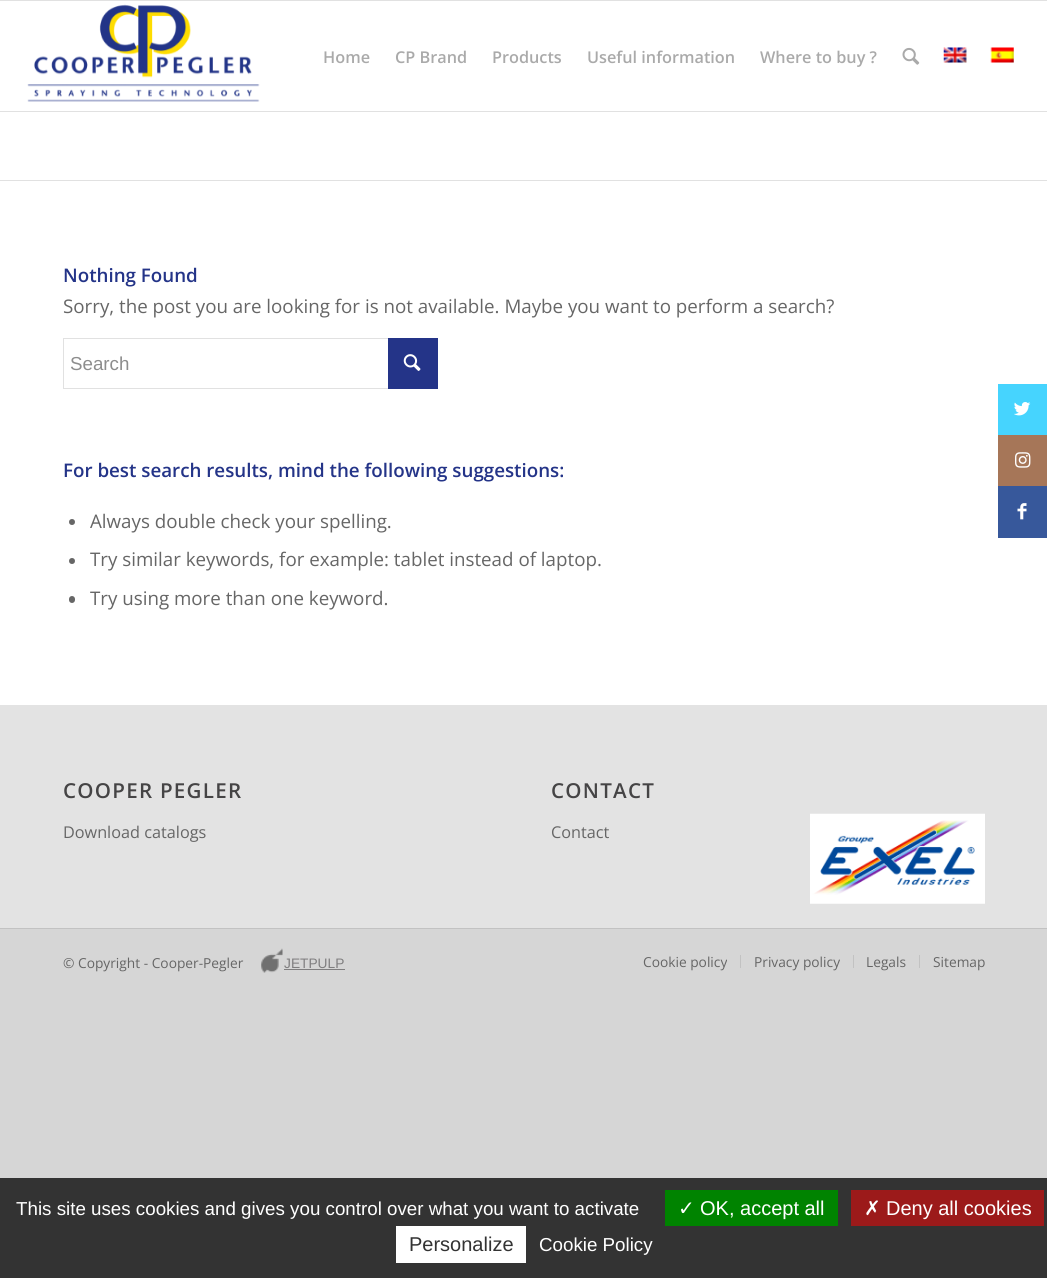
#include <cairo.h>
#include <math.h>
#include <stddef.h>

typedef struct { double x, y; const char *s; } line_t;
typedef struct { double x, y, w, h; unsigned color; } box_t;

static void ink(cairo_t *ctx, unsigned color) {
    cairo_set_source_rgb(ctx, (color >> 16) / 255.0, (color >> 8 & 255) / 255.0, (color & 255) / 255.0);
}

static void write_spaced(cairo_t *ctx, double x, double y, const char *s, double letter, double word) {
    cairo_move_to(ctx, x, y);
    while (*s) {
        char ch[5] = {0};
        int n = 0;
        do ch[n++] = *s++; while ((*s & 0xC0) == 0x80);
        cairo_show_text(ctx, ch);
        cairo_rel_move_to(ctx, letter + word * (*ch == ' '), 0);
    }
}

static void round_path(cairo_t *ctx, double x, double y, double w, double h, double r) {
    cairo_new_sub_path(ctx);
    cairo_arc(ctx, x + w - r, y + h - r, r, 0, M_PI / 2);
    cairo_arc(ctx, x + r, y + h - r, r, M_PI / 2, M_PI);
    cairo_arc(ctx, x + r, y + r, r, M_PI, 1.5 * M_PI);
    cairo_arc(ctx, x + w - r, y + r, r, 1.5 * M_PI, 2 * M_PI);
    cairo_close_path(ctx);
}

static void paste(cairo_t *ctx, const char *path, double x, double y, double w, double h) {
    cairo_surface_t *image = cairo_image_surface_create_from_png(path);
    cairo_save(ctx);
    cairo_set_source_surface(ctx, image, x, y);
    cairo_rectangle(ctx, x, y, w, h);
    cairo_fill(ctx);
    cairo_restore(ctx);
    cairo_surface_destroy(image);
}

int main(void) {
    cairo_surface_t *surface = cairo_image_surface_create(CAIRO_FORMAT_RGB24, 1047, 1278);
    cairo_t *ctx = cairo_create(surface);
    cairo_font_options_t *options = cairo_font_options_create();
    cairo_font_options_set_hint_metrics(options, CAIRO_HINT_METRICS_OFF);
    cairo_font_options_set_hint_style(options, CAIRO_HINT_STYLE_NONE);
    cairo_set_font_options(ctx, options);
    cairo_set_miter_limit(ctx, 4);
    ink(ctx, 0xD6D6D6);
    cairo_paint(ctx);
    {
        static const box_t items[] = {
            {0, 0, 1047, 1, 0xE1E1E1},
            {0, 1, 1047, 704, 0xFFFFFF},
            {0, 111, 1047, 1, 0xE1E1E1},
        };
        for (size_t i = 0; i < sizeof items / sizeof *items; i++) {
            ink(ctx, items[i].color);
            cairo_rectangle(ctx, items[i].x, items[i].y, items[i].w, items[i].h);
            cairo_fill(ctx);
        }
    }
    paste(ctx, "media/1.png", 27, 4, 233, 98);
    cairo_select_font_face(ctx, "Open Sans SemiBold", CAIRO_FONT_SLANT_NORMAL, CAIRO_FONT_WEIGHT_NORMAL);
    cairo_set_font_size(ctx, 16.25);
    ink(ctx, 0xAAAAAA);
    {
        static const line_t items[] = {
            {323, 63, "Home"},
            {395, 63, "CP Brand"},
            {492, 63, "Products"},
            {587, 63, "Useful information"},
            {760, 63, "Where to buy ?"},
        };
        for (size_t i = 0; i < sizeof items / sizeof *items; i++) {
            cairo_move_to(ctx, items[i].x, items[i].y);
            cairo_show_text(ctx, items[i].s);
        }
    }
    paste(ctx, "media/2.png", 902, 47, 18, 18);
    paste(ctx, "media/3.png", 943, 47, 24, 16);
    paste(ctx, "media/4.png", 990, 47, 24, 16);
    ink(ctx, 0xE1E1E1);
    cairo_rectangle(ctx, 0, 180, 1047, 1);
    cairo_fill(ctx);
    cairo_set_font_size(ctx, 18.75);
    ink(ctx, 0x243488);
    cairo_move_to(ctx, 63, 282);
    cairo_show_text(ctx, "Nothing Found");
    cairo_select_font_face(ctx, "Open Sans", CAIRO_FONT_SLANT_NORMAL, CAIRO_FONT_WEIGHT_NORMAL);
    ink(ctx, 0x666666);
    cairo_move_to(ctx, 63, 313);
    cairo_show_text(ctx, "Sorry, the post you are looking for is not available. Maybe you want to perform a search?");
    cairo_rectangle(ctx, 63.5, 338.5, 374, 50);
    ink(ctx, 0xE1E1E1);
    cairo_set_line_width(ctx, 1);
    cairo_stroke(ctx);
    cairo_select_font_face(ctx, "Liberation Sans", CAIRO_FONT_SLANT_NORMAL, CAIRO_FONT_WEIGHT_NORMAL);
    ink(ctx, 0x8D8D8D);
    cairo_move_to(ctx, 70, 370);
    cairo_show_text(ctx, "Search");
    ink(ctx, 0x243488);
    cairo_rectangle(ctx, 388, 338, 50, 51);
    cairo_fill(ctx);
    paste(ctx, "media/5.png", 403, 354, 18, 17);
    cairo_select_font_face(ctx, "Open Sans SemiBold", CAIRO_FONT_SLANT_NORMAL, CAIRO_FONT_WEIGHT_NORMAL);
    cairo_move_to(ctx, 63, 477);
    cairo_show_text(ctx, "For best search results, mind the following suggestions:");
    ink(ctx, 0x666666);
    cairo_new_path(ctx);
    cairo_arc(ctx, 72, 522, 3, 0, 2 * M_PI);
    cairo_fill(ctx);
    cairo_select_font_face(ctx, "Open Sans", CAIRO_FONT_SLANT_NORMAL, CAIRO_FONT_WEIGHT_NORMAL);
    cairo_move_to(ctx, 90, 528);
    cairo_show_text(ctx, "Always double check your spelling.");
    cairo_new_path(ctx);
    cairo_arc(ctx, 72, 561, 3, 0, 2 * M_PI);
    cairo_fill(ctx);
    cairo_move_to(ctx, 90, 566);
    cairo_show_text(ctx, "Try similar keywords, for example: tablet instead of laptop.");
    round_path(ctx, 69, 596, 6, 7, 3);
    cairo_fill(ctx);
    cairo_move_to(ctx, 90, 605);
    cairo_show_text(ctx, "Try using more than one keyword.");
    ink(ctx, 0xE3E3E3);
    cairo_rectangle(ctx, 0, 705, 1047, 223);
    cairo_fill(ctx);
    cairo_select_font_face(ctx, "Open Sans SemiBold", CAIRO_FONT_SLANT_NORMAL, CAIRO_FONT_WEIGHT_NORMAL);
    cairo_set_font_size(ctx, 20.6);
    ink(ctx, 0x454445);
    write_spaced(ctx, 63, 798, "COOPER PEGLER", 1.25, 0);
    cairo_select_font_face(ctx, "Open Sans", CAIRO_FONT_SLANT_NORMAL, CAIRO_FONT_WEIGHT_NORMAL);
    cairo_set_font_size(ctx, 16.25);
    ink(ctx, 0x666666);
    cairo_move_to(ctx, 63, 838);
    cairo_show_text(ctx, "Download catalogs");
    cairo_select_font_face(ctx, "Open Sans SemiBold", CAIRO_FONT_SLANT_NORMAL, CAIRO_FONT_WEIGHT_NORMAL);
    cairo_set_font_size(ctx, 20.6);
    ink(ctx, 0x454445);
    write_spaced(ctx, 551, 798, "CONTACT", 1.25, 0);
    cairo_select_font_face(ctx, "Open Sans", CAIRO_FONT_SLANT_NORMAL, CAIRO_FONT_WEIGHT_NORMAL);
    cairo_set_font_size(ctx, 16.25);
    ink(ctx, 0x666666);
    cairo_move_to(ctx, 551, 838);
    cairo_show_text(ctx, "Contact");
    paste(ctx, "media/6.png", 810, 813, 175, 91);
    ink(ctx, 0xC2C2C2);
    cairo_rectangle(ctx, 0, 928, 1047, 1);
    cairo_fill(ctx);
    ink(ctx, 0x46D4FE);
    cairo_rectangle(ctx, 998, 384, 49, 51);
    cairo_fill(ctx);
    paste(ctx, "media/7.png", 1014, 402, 17, 14);
    ink(ctx, 0xA67658);
    cairo_rectangle(ctx, 998, 435, 49, 51);
    cairo_fill(ctx);
    paste(ctx, "media/8.png", 1015, 452, 16, 16);
    ink(ctx, 0x37589B);
    cairo_rectangle(ctx, 998, 486, 49, 52);
    cairo_fill(ctx);
    paste(ctx, "media/9.png", 1017, 503, 10, 17);
    cairo_set_font_size(ctx, 13.75);
    ink(ctx, 0x666666);
    cairo_move_to(ctx, 63, 968);
    cairo_show_text(ctx, "© Copyright - Cooper-Pegler");
    paste(ctx, "media/10.png", 261, 948, 22, 25);
    cairo_select_font_face(ctx, "Liberation Sans", CAIRO_FONT_SLANT_NORMAL, CAIRO_FONT_WEIGHT_NORMAL);
    ink(ctx, 0x7F7E7F);
    cairo_move_to(ctx, 284, 968);
    cairo_show_text(ctx, "JETPULP");
    cairo_rectangle(ctx, 284, 969, 61, 1);
    cairo_fill(ctx);
    cairo_select_font_face(ctx, "Open Sans", CAIRO_FONT_SLANT_NORMAL, CAIRO_FONT_WEIGHT_NORMAL);
    ink(ctx, 0x666666);
    cairo_move_to(ctx, 643, 967);
    cairo_show_text(ctx, "Cookie policy");
    ink(ctx, 0xC2C2C2);
    cairo_rectangle(ctx, 740, 955, 1, 13);
    cairo_fill(ctx);
    ink(ctx, 0x666666);
    cairo_move_to(ctx, 754, 967);
    cairo_show_text(ctx, "Privacy policy");
    ink(ctx, 0xC2C2C2);
    cairo_rectangle(ctx, 853, 955, 1, 13);
    cairo_fill(ctx);
    ink(ctx, 0x666666);
    cairo_move_to(ctx, 866, 967);
    cairo_show_text(ctx, "Legals");
    ink(ctx, 0xC2C2C2);
    cairo_rectangle(ctx, 919, 955, 1, 13);
    cairo_fill(ctx);
    ink(ctx, 0x666666);
    cairo_move_to(ctx, 933, 967);
    cairo_show_text(ctx, "Sitemap");
    ink(ctx, 0x333333);
    cairo_rectangle(ctx, 0, 1178, 1047, 100);
    cairo_fill(ctx);
    cairo_select_font_face(ctx, "Liberation Sans", CAIRO_FONT_SLANT_NORMAL, CAIRO_FONT_WEIGHT_NORMAL);
    cairo_set_font_size(ctx, 18.75);
    ink(ctx, 0xFFFFFF);
    cairo_move_to(ctx, 16, 1215);
    cairo_show_text(ctx, "This site uses cookies and gives you control over what you want to activate");
    ink(ctx, 0x008300);
    cairo_rectangle(ctx, 665, 1190, 173, 36);
    cairo_fill(ctx);
    cairo_select_font_face(ctx, "DejaVu Sans", CAIRO_FONT_SLANT_NORMAL, CAIRO_FONT_WEIGHT_NORMAL);
    cairo_set_font_size(ctx, 20);
    ink(ctx, 0xFFFFFF);
    cairo_move_to(ctx, 678, 1215);
    cairo_show_text(ctx, "✓");
    cairo_select_font_face(ctx, "Liberation Sans", CAIRO_FONT_SLANT_NORMAL, CAIRO_FONT_WEIGHT_NORMAL);
    cairo_move_to(ctx, 700, 1215);
    cairo_show_text(ctx, "OK, accept all");
    ink(ctx, 0x9C1A1A);
    cairo_rectangle(ctx, 851, 1190, 193, 36);
    cairo_fill(ctx);
    cairo_select_font_face(ctx, "DejaVu Sans", CAIRO_FONT_SLANT_NORMAL, CAIRO_FONT_WEIGHT_NORMAL);
    ink(ctx, 0xFFFFFF);
    cairo_move_to(ctx, 864, 1215);
    cairo_show_text(ctx, "✗");
    cairo_select_font_face(ctx, "Liberation Sans", CAIRO_FONT_SLANT_NORMAL, CAIRO_FONT_WEIGHT_NORMAL);
    cairo_move_to(ctx, 886, 1215);
    cairo_show_text(ctx, "Deny all cookies");
    cairo_rectangle(ctx, 396, 1226, 130, 37);
    cairo_fill(ctx);
    ink(ctx, 0x333333);
    cairo_move_to(ctx, 409, 1251);
    cairo_show_text(ctx, "Personalize");
    cairo_set_font_size(ctx, 18.75);
    ink(ctx, 0xFFFFFF);
    cairo_move_to(ctx, 539, 1251);
    cairo_show_text(ctx, "Cookie Policy");
    cairo_surface_write_to_png(surface, "image.png");
    cairo_font_options_destroy(options);
    cairo_destroy(ctx);
    cairo_surface_destroy(surface);
    return 0;
}
